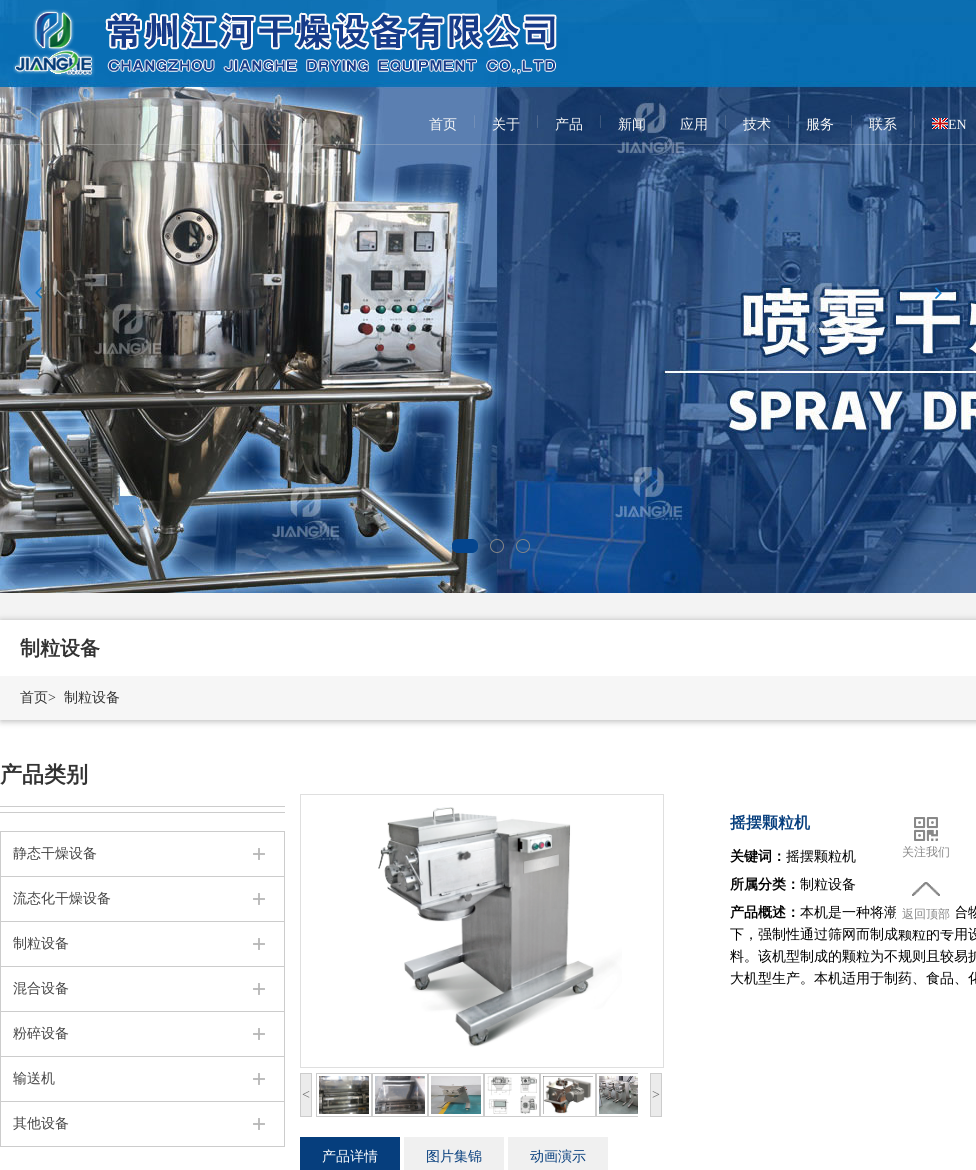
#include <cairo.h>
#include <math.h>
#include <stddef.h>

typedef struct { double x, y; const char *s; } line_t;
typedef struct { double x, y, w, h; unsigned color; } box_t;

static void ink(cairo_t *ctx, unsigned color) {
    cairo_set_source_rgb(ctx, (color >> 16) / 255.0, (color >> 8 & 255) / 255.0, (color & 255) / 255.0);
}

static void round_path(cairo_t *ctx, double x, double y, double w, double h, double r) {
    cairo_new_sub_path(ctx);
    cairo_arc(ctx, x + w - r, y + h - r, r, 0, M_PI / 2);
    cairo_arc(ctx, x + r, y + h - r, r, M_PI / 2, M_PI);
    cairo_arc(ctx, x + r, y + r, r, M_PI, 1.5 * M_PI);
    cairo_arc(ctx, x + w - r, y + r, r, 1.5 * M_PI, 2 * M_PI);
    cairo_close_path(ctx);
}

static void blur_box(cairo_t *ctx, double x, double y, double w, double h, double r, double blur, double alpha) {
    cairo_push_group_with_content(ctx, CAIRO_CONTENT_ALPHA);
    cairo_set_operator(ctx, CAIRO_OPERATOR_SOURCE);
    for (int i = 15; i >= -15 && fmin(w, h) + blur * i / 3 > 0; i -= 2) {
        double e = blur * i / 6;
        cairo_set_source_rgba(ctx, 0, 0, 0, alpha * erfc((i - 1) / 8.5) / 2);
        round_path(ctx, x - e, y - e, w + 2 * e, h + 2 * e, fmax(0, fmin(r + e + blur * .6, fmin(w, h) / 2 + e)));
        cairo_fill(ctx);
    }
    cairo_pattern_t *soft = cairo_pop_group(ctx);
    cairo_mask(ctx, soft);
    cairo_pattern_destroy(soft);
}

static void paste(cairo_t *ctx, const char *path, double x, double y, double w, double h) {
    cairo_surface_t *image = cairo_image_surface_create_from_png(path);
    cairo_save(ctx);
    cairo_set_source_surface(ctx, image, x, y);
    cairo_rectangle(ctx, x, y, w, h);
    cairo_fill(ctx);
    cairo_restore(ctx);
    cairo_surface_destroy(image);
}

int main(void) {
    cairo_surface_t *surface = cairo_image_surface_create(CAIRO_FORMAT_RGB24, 976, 1170);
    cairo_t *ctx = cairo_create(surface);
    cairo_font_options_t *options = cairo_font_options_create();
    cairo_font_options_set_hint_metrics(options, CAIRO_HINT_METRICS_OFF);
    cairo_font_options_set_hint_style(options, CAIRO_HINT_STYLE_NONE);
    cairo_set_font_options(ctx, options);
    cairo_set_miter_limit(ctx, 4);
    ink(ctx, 0xFFFFFF);
    cairo_paint(ctx);
    paste(ctx, "media/1.png", 0, 0, 976, 593);
    paste(ctx, "media/2.png", 35, 287, 7, 12);
    paste(ctx, "media/3.png", 935, 287, 7, 12);
    ink(ctx, 0x04458E);
    round_path(ctx, 452.5, 539.5, 25, 13, 5.5);
    cairo_fill_preserve(ctx);
    cairo_set_line_width(ctx, 1);
    cairo_stroke(ctx);
    cairo_arc(ctx, 497, 546, 6.5, 0, 2 * M_PI);
    ink(ctx, 0x828486);
    cairo_stroke(ctx);
    cairo_arc(ctx, 523, 546, 6.5, 0, 2 * M_PI);
    cairo_stroke(ctx);
    paste(ctx, "media/4.png", 13, 9, 544, 68);
    cairo_select_font_face(ctx, "WenQuanYi Zen Hei Medium", CAIRO_FONT_SLANT_NORMAL, CAIRO_FONT_WEIGHT_NORMAL);
    cairo_set_font_size(ctx, 14);
    ink(ctx, 0xF7F7F7);
    cairo_move_to(ctx, 429, 129);
    cairo_show_text(ctx, "首页");
    cairo_select_font_face(ctx, "Liberation Serif", CAIRO_FONT_SLANT_NORMAL, CAIRO_FONT_WEIGHT_NORMAL);
    ink(ctx, 0x7D96B9);
    cairo_move_to(ctx, 473, 125);
    cairo_show_text(ctx, "|");
    cairo_select_font_face(ctx, "WenQuanYi Zen Hei Medium", CAIRO_FONT_SLANT_NORMAL, CAIRO_FONT_WEIGHT_NORMAL);
    ink(ctx, 0xF7F7F7);
    cairo_move_to(ctx, 492, 129);
    cairo_show_text(ctx, "关于");
    cairo_select_font_face(ctx, "Liberation Serif", CAIRO_FONT_SLANT_NORMAL, CAIRO_FONT_WEIGHT_NORMAL);
    ink(ctx, 0x5B7293);
    cairo_move_to(ctx, 536, 125);
    cairo_show_text(ctx, "|");
    cairo_select_font_face(ctx, "WenQuanYi Zen Hei Medium", CAIRO_FONT_SLANT_NORMAL, CAIRO_FONT_WEIGHT_NORMAL);
    ink(ctx, 0xF7F7F7);
    cairo_move_to(ctx, 555, 129);
    cairo_show_text(ctx, "产品");
    cairo_select_font_face(ctx, "Liberation Serif", CAIRO_FONT_SLANT_NORMAL, CAIRO_FONT_WEIGHT_NORMAL);
    ink(ctx, 0x4D6485);
    cairo_move_to(ctx, 599, 125);
    cairo_show_text(ctx, "|");
    cairo_select_font_face(ctx, "WenQuanYi Zen Hei Medium", CAIRO_FONT_SLANT_NORMAL, CAIRO_FONT_WEIGHT_NORMAL);
    ink(ctx, 0xF7F7F7);
    cairo_move_to(ctx, 618, 129);
    cairo_show_text(ctx, "新闻");
    cairo_select_font_face(ctx, "Liberation Serif", CAIRO_FONT_SLANT_NORMAL, CAIRO_FONT_WEIGHT_NORMAL);
    ink(ctx, 0x7F91A9);
    cairo_move_to(ctx, 662, 125);
    cairo_show_text(ctx, "|");
    cairo_select_font_face(ctx, "WenQuanYi Zen Hei Medium", CAIRO_FONT_SLANT_NORMAL, CAIRO_FONT_WEIGHT_NORMAL);
    ink(ctx, 0xF7F7F7);
    cairo_move_to(ctx, 680, 129);
    cairo_show_text(ctx, "应用");
    cairo_select_font_face(ctx, "Liberation Serif", CAIRO_FONT_SLANT_NORMAL, CAIRO_FONT_WEIGHT_NORMAL);
    ink(ctx, 0x5B7293);
    cairo_move_to(ctx, 724, 125);
    cairo_show_text(ctx, "|");
    cairo_select_font_face(ctx, "WenQuanYi Zen Hei Medium", CAIRO_FONT_SLANT_NORMAL, CAIRO_FONT_WEIGHT_NORMAL);
    ink(ctx, 0xF7F7F7);
    cairo_move_to(ctx, 743, 129);
    cairo_show_text(ctx, "技术");
    cairo_select_font_face(ctx, "Liberation Serif", CAIRO_FONT_SLANT_NORMAL, CAIRO_FONT_WEIGHT_NORMAL);
    ink(ctx, 0x4D6485);
    cairo_move_to(ctx, 787, 125);
    cairo_show_text(ctx, "|");
    cairo_select_font_face(ctx, "WenQuanYi Zen Hei Medium", CAIRO_FONT_SLANT_NORMAL, CAIRO_FONT_WEIGHT_NORMAL);
    ink(ctx, 0xF7F7F7);
    cairo_move_to(ctx, 806, 129);
    cairo_show_text(ctx, "服务");
    cairo_select_font_face(ctx, "Liberation Serif", CAIRO_FONT_SLANT_NORMAL, CAIRO_FONT_WEIGHT_NORMAL);
    ink(ctx, 0x536A8A);
    cairo_move_to(ctx, 850, 125);
    cairo_show_text(ctx, "|");
    cairo_select_font_face(ctx, "WenQuanYi Zen Hei Medium", CAIRO_FONT_SLANT_NORMAL, CAIRO_FONT_WEIGHT_NORMAL);
    ink(ctx, 0xF7F7F7);
    cairo_move_to(ctx, 869, 129);
    cairo_show_text(ctx, "联系");
    cairo_select_font_face(ctx, "Liberation Serif", CAIRO_FONT_SLANT_NORMAL, CAIRO_FONT_WEIGHT_NORMAL);
    ink(ctx, 0x536A8A);
    cairo_move_to(ctx, 913, 125);
    cairo_show_text(ctx, "|");
    paste(ctx, "media/5.png", 932, 118, 16, 11);
    ink(ctx, 0xF7F7F7);
    cairo_move_to(ctx, 948, 129);
    cairo_show_text(ctx, "EN");
    cairo_set_source_rgba(ctx, 0.8, 0.8, 0.8, 0.3);
    cairo_rectangle(ctx, 0, 144, 976, 1);
    cairo_fill(ctx);
    ink(ctx, 0xF3F3F3);
    cairo_rectangle(ctx, 0, 593, 976, 27);
    cairo_fill(ctx);
    ink(ctx, 0x000000);
    blur_box(ctx, 1, 621, 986, 100, 0, 3.5, 0.3);
    ink(ctx, 0xFFFFFF);
    cairo_rectangle(ctx, 0, 620, 976, 56);
    cairo_fill(ctx);
    cairo_select_font_face(ctx, "WenQuanYi Zen Hei", CAIRO_FONT_SLANT_NORMAL, CAIRO_FONT_WEIGHT_BOLD);
    cairo_set_font_size(ctx, 20);
    ink(ctx, 0x333333);
    cairo_move_to(ctx, 20, 655);
    cairo_show_text(ctx, "制粒设备");
    ink(ctx, 0xF6F6F6);
    cairo_rectangle(ctx, 0, 676, 976, 44);
    cairo_fill(ctx);
    cairo_select_font_face(ctx, "WenQuanYi Zen Hei Medium", CAIRO_FONT_SLANT_NORMAL, CAIRO_FONT_WEIGHT_NORMAL);
    cairo_set_font_size(ctx, 14);
    ink(ctx, 0x333333);
    cairo_move_to(ctx, 20, 702);
    cairo_show_text(ctx, "首页");
    cairo_select_font_face(ctx, "Liberation Serif", CAIRO_FONT_SLANT_NORMAL, CAIRO_FONT_WEIGHT_NORMAL);
    cairo_move_to(ctx, 48, 702);
    cairo_show_text(ctx, ">");
    cairo_select_font_face(ctx, "WenQuanYi Zen Hei Medium", CAIRO_FONT_SLANT_NORMAL, CAIRO_FONT_WEIGHT_NORMAL);
    cairo_move_to(ctx, 64, 702);
    cairo_show_text(ctx, "制粒设备");
    cairo_select_font_face(ctx, "WenQuanYi Zen Hei", CAIRO_FONT_SLANT_NORMAL, CAIRO_FONT_WEIGHT_BOLD);
    cairo_set_font_size(ctx, 22);
    cairo_move_to(ctx, 0, 782);
    cairo_show_text(ctx, "产品类别");
    {
        static const box_t items[] = {
            {0, 806, 285, 1, 0xCCCCCC},
            {0, 812, 285, 1, 0xCCCCCC},
            {0, 1146, 285, 1, 0xCCCCCC},
        };
        for (size_t i = 0; i < sizeof items / sizeof *items; i++) {
            ink(ctx, items[i].color);
            cairo_rectangle(ctx, items[i].x, items[i].y, items[i].w, items[i].h);
            cairo_fill(ctx);
        }
    }
    paste(ctx, "media/6.png", 253, 848, 12, 12);
    {
        static const box_t items[] = {
            {0, 831, 285, 1, 0xCCCCCC},
            {284, 831, 1, 45, 0xCCCCCC},
            {0, 831, 1, 45, 0xCCCCCC},
        };
        for (size_t i = 0; i < sizeof items / sizeof *items; i++) {
            ink(ctx, items[i].color);
            cairo_rectangle(ctx, items[i].x, items[i].y, items[i].w, items[i].h);
            cairo_fill(ctx);
        }
    }
    cairo_select_font_face(ctx, "WenQuanYi Zen Hei Medium", CAIRO_FONT_SLANT_NORMAL, CAIRO_FONT_WEIGHT_NORMAL);
    cairo_set_font_size(ctx, 14);
    ink(ctx, 0x444444);
    cairo_move_to(ctx, 13, 858);
    cairo_show_text(ctx, "静态干燥设备");
    paste(ctx, "media/6.png", 253, 893, 12, 12);
    {
        static const box_t items[] = {
            {0, 876, 285, 1, 0xCCCCCC},
            {284, 876, 1, 45, 0xCCCCCC},
            {0, 876, 1, 45, 0xCCCCCC},
        };
        for (size_t i = 0; i < sizeof items / sizeof *items; i++) {
            ink(ctx, items[i].color);
            cairo_rectangle(ctx, items[i].x, items[i].y, items[i].w, items[i].h);
            cairo_fill(ctx);
        }
    }
    ink(ctx, 0x444444);
    cairo_move_to(ctx, 13, 903);
    cairo_show_text(ctx, "流态化干燥设备");
    paste(ctx, "media/6.png", 253, 938, 12, 12);
    {
        static const box_t items[] = {
            {0, 921, 285, 1, 0xCCCCCC},
            {284, 921, 1, 45, 0xCCCCCC},
            {0, 921, 1, 45, 0xCCCCCC},
        };
        for (size_t i = 0; i < sizeof items / sizeof *items; i++) {
            ink(ctx, items[i].color);
            cairo_rectangle(ctx, items[i].x, items[i].y, items[i].w, items[i].h);
            cairo_fill(ctx);
        }
    }
    ink(ctx, 0x444444);
    cairo_move_to(ctx, 13, 948);
    cairo_show_text(ctx, "制粒设备");
    paste(ctx, "media/6.png", 253, 983, 12, 12);
    {
        static const box_t items[] = {
            {0, 966, 285, 1, 0xCCCCCC},
            {284, 966, 1, 45, 0xCCCCCC},
            {0, 966, 1, 45, 0xCCCCCC},
        };
        for (size_t i = 0; i < sizeof items / sizeof *items; i++) {
            ink(ctx, items[i].color);
            cairo_rectangle(ctx, items[i].x, items[i].y, items[i].w, items[i].h);
            cairo_fill(ctx);
        }
    }
    ink(ctx, 0x444444);
    cairo_move_to(ctx, 13, 993);
    cairo_show_text(ctx, "混合设备");
    paste(ctx, "media/6.png", 253, 1028, 12, 12);
    {
        static const box_t items[] = {
            {0, 1011, 285, 1, 0xCCCCCC},
            {284, 1011, 1, 45, 0xCCCCCC},
            {0, 1011, 1, 45, 0xCCCCCC},
        };
        for (size_t i = 0; i < sizeof items / sizeof *items; i++) {
            ink(ctx, items[i].color);
            cairo_rectangle(ctx, items[i].x, items[i].y, items[i].w, items[i].h);
            cairo_fill(ctx);
        }
    }
    ink(ctx, 0x444444);
    cairo_move_to(ctx, 13, 1038);
    cairo_show_text(ctx, "粉碎设备");
    paste(ctx, "media/6.png", 253, 1073, 12, 12);
    {
        static const box_t items[] = {
            {0, 1056, 285, 1, 0xCCCCCC},
            {284, 1056, 1, 45, 0xCCCCCC},
            {0, 1056, 1, 45, 0xCCCCCC},
        };
        for (size_t i = 0; i < sizeof items / sizeof *items; i++) {
            ink(ctx, items[i].color);
            cairo_rectangle(ctx, items[i].x, items[i].y, items[i].w, items[i].h);
            cairo_fill(ctx);
        }
    }
    ink(ctx, 0x444444);
    cairo_move_to(ctx, 13, 1083);
    cairo_show_text(ctx, "输送机");
    paste(ctx, "media/6.png", 253, 1118, 12, 12);
    {
        static const box_t items[] = {
            {0, 1101, 285, 1, 0xCCCCCC},
            {284, 1101, 1, 45, 0xCCCCCC},
            {0, 1101, 1, 45, 0xCCCCCC},
        };
        for (size_t i = 0; i < sizeof items / sizeof *items; i++) {
            ink(ctx, items[i].color);
            cairo_rectangle(ctx, items[i].x, items[i].y, items[i].w, items[i].h);
            cairo_fill(ctx);
        }
    }
    ink(ctx, 0x444444);
    cairo_move_to(ctx, 13, 1128);
    cairo_show_text(ctx, "其他设备");
    cairo_select_font_face(ctx, "WenQuanYi Zen Hei", CAIRO_FONT_SLANT_NORMAL, CAIRO_FONT_WEIGHT_BOLD);
    cairo_set_font_size(ctx, 16);
    ink(ctx, 0x063E7D);
    cairo_move_to(ctx, 730, 828);
    cairo_show_text(ctx, "摇摆颗粒机");
    cairo_set_font_size(ctx, 14);
    ink(ctx, 0x000000);
    cairo_move_to(ctx, 730, 861);
    cairo_show_text(ctx, "关键词：");
    cairo_select_font_face(ctx, "WenQuanYi Zen Hei Medium", CAIRO_FONT_SLANT_NORMAL, CAIRO_FONT_WEIGHT_NORMAL);
    cairo_move_to(ctx, 786, 861);
    cairo_show_text(ctx, "摇摆颗粒机");
    cairo_select_font_face(ctx, "WenQuanYi Zen Hei", CAIRO_FONT_SLANT_NORMAL, CAIRO_FONT_WEIGHT_BOLD);
    cairo_move_to(ctx, 730, 889);
    cairo_show_text(ctx, "所属分类：");
    cairo_select_font_face(ctx, "WenQuanYi Zen Hei Medium", CAIRO_FONT_SLANT_NORMAL, CAIRO_FONT_WEIGHT_NORMAL);
    cairo_move_to(ctx, 800, 889);
    cairo_show_text(ctx, "制粒设备");
    cairo_select_font_face(ctx, "WenQuanYi Zen Hei", CAIRO_FONT_SLANT_NORMAL, CAIRO_FONT_WEIGHT_BOLD);
    cairo_move_to(ctx, 730, 917);
    cairo_show_text(ctx, "产品概述：");
    cairo_select_font_face(ctx, "WenQuanYi Zen Hei Medium", CAIRO_FONT_SLANT_NORMAL, CAIRO_FONT_WEIGHT_NORMAL);
    {
        static const line_t items[] = {
            {800, 917, "本机是一种将潮"},
            {954, 917, "合物"},
            {730, 939, "下，强制性通过筛网而制成颗粒的专用设"},
            {730, 961, "料。该机型制成的颗粒为不规则且较易扩"},
            {730, 983, "大机型生产。本机适用于制药、食品、化"},
        };
        for (size_t i = 0; i < sizeof items / sizeof *items; i++) {
            cairo_move_to(ctx, items[i].x, items[i].y);
            cairo_show_text(ctx, items[i].s);
        }
    }
    cairo_rectangle(ctx, 300.5, 794.5, 363, 273);
    ink(ctx, 0xDFDFDF);
    cairo_stroke(ctx);
    paste(ctx, "media/7.png", 378, 807, 244, 240);
    ink(ctx, 0xEBEBEB);
    cairo_rectangle(ctx, 300.5, 1073.5, 11, 43);
    cairo_fill_preserve(ctx);
    ink(ctx, 0xCCCCCC);
    cairo_stroke(ctx);
    cairo_select_font_face(ctx, "Liberation Serif", CAIRO_FONT_SLANT_NORMAL, CAIRO_FONT_WEIGHT_NORMAL);
    ink(ctx, 0x666666);
    cairo_move_to(ctx, 302, 1099);
    cairo_show_text(ctx, "<");
    cairo_rectangle(ctx, 316.5, 1073.5, 55, 43);
    ink(ctx, 0xCCCCCC);
    cairo_stroke(ctx);
    paste(ctx, "media/8.png", 319, 1076, 50, 38);
    cairo_rectangle(ctx, 372.5, 1073.5, 55, 43);
    cairo_stroke(ctx);
    paste(ctx, "media/9.png", 375, 1076, 50, 38);
    cairo_rectangle(ctx, 428.5, 1073.5, 55, 43);
    cairo_stroke(ctx);
    paste(ctx, "media/10.png", 431, 1076, 50, 38);
    cairo_rectangle(ctx, 484.5, 1073.5, 55, 43);
    cairo_stroke(ctx);
    paste(ctx, "media/11.png", 487, 1076, 50, 38);
    cairo_rectangle(ctx, 540.5, 1073.5, 55, 43);
    cairo_stroke(ctx);
    paste(ctx, "media/12.png", 543, 1076, 50, 38);
    ink(ctx, 0xEBEBEB);
    cairo_rectangle(ctx, 650.5, 1073.5, 11, 43);
    cairo_fill_preserve(ctx);
    ink(ctx, 0xCCCCCC);
    cairo_stroke(ctx);
    cairo_save(ctx);
    cairo_rectangle(ctx, 316, 1073, 322, 44);
    cairo_clip(ctx);
    cairo_rectangle(ctx, 596.5, 1073.5, 55, 43);
    cairo_stroke(ctx);
    cairo_restore(ctx);
    paste(ctx, "media/13.png", 599, 1076, 39, 38);
    ink(ctx, 0x666666);
    cairo_move_to(ctx, 652, 1099);
    cairo_show_text(ctx, ">");
    ink(ctx, 0x063E7D);
    cairo_rectangle(ctx, 300, 1137, 100, 33);
    cairo_fill(ctx);
    cairo_select_font_face(ctx, "WenQuanYi Zen Hei Medium", CAIRO_FONT_SLANT_NORMAL, CAIRO_FONT_WEIGHT_NORMAL);
    ink(ctx, 0xFFFFFF);
    cairo_move_to(ctx, 322, 1161);
    cairo_show_text(ctx, "产品详情");
    ink(ctx, 0xF0F0F0);
    cairo_rectangle(ctx, 404, 1137, 100, 33);
    cairo_fill(ctx);
    ink(ctx, 0x063E7D);
    cairo_move_to(ctx, 426, 1161);
    cairo_show_text(ctx, "图片集锦");
    ink(ctx, 0xF0F0F0);
    cairo_rectangle(ctx, 508, 1137, 100, 33);
    cairo_fill(ctx);
    ink(ctx, 0x063E7D);
    cairo_move_to(ctx, 530, 1161);
    cairo_show_text(ctx, "动画演示");
    paste(ctx, "media/14.png", 914, 817, 24, 24);
    cairo_set_font_size(ctx, 12);
    ink(ctx, 0x888888);
    cairo_move_to(ctx, 902, 856);
    cairo_show_text(ctx, "关注我们");
    ink(ctx, 0xFFFFFF);
    cairo_rectangle(ctx, 896, 906, 60, 24);
    cairo_fill(ctx);
    paste(ctx, "media/15.png", 912, 882, 28, 14);
    ink(ctx, 0x888888);
    cairo_move_to(ctx, 902, 918);
    cairo_show_text(ctx, "返回顶部");
    cairo_surface_write_to_png(surface, "image.png");
    cairo_font_options_destroy(options);
    cairo_destroy(ctx);
    cairo_surface_destroy(surface);
    return 0;
}
